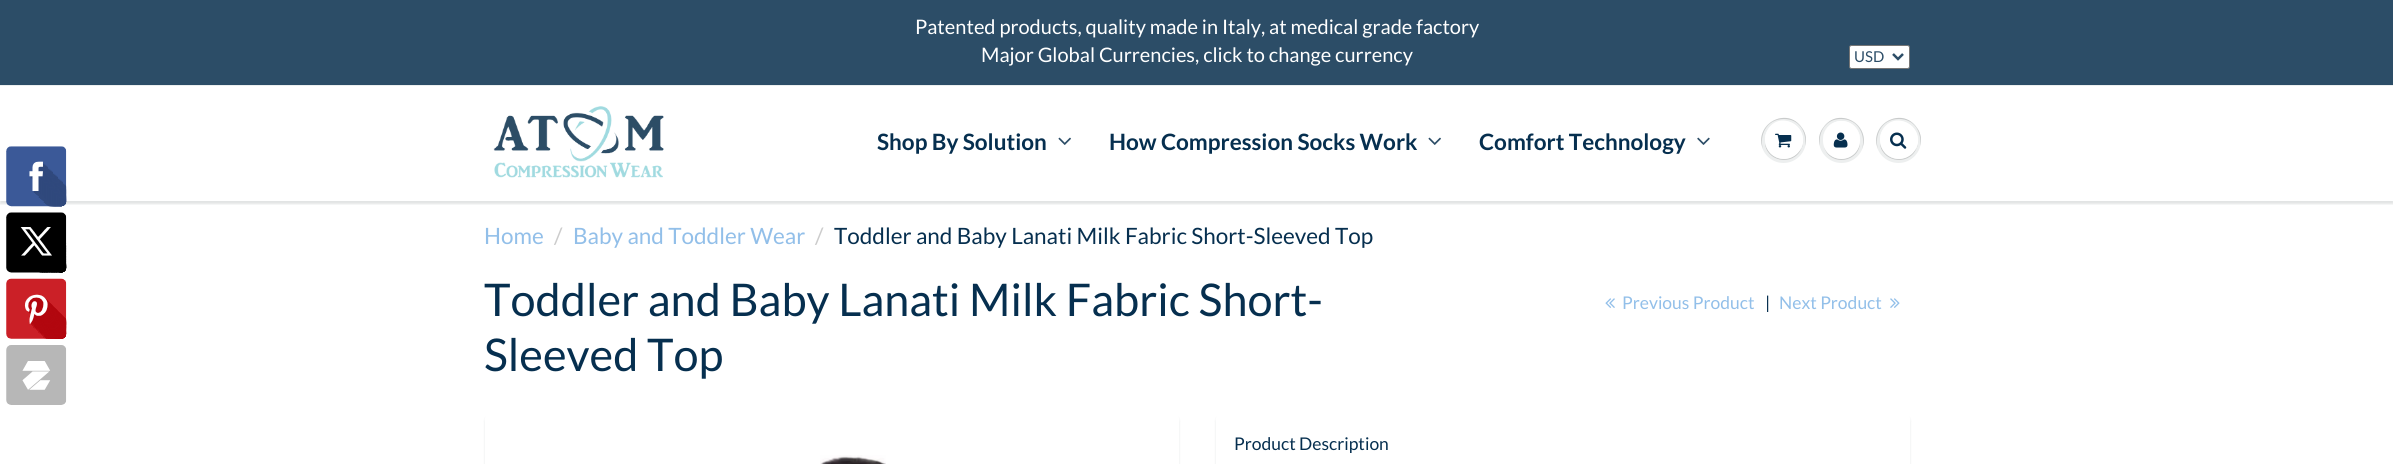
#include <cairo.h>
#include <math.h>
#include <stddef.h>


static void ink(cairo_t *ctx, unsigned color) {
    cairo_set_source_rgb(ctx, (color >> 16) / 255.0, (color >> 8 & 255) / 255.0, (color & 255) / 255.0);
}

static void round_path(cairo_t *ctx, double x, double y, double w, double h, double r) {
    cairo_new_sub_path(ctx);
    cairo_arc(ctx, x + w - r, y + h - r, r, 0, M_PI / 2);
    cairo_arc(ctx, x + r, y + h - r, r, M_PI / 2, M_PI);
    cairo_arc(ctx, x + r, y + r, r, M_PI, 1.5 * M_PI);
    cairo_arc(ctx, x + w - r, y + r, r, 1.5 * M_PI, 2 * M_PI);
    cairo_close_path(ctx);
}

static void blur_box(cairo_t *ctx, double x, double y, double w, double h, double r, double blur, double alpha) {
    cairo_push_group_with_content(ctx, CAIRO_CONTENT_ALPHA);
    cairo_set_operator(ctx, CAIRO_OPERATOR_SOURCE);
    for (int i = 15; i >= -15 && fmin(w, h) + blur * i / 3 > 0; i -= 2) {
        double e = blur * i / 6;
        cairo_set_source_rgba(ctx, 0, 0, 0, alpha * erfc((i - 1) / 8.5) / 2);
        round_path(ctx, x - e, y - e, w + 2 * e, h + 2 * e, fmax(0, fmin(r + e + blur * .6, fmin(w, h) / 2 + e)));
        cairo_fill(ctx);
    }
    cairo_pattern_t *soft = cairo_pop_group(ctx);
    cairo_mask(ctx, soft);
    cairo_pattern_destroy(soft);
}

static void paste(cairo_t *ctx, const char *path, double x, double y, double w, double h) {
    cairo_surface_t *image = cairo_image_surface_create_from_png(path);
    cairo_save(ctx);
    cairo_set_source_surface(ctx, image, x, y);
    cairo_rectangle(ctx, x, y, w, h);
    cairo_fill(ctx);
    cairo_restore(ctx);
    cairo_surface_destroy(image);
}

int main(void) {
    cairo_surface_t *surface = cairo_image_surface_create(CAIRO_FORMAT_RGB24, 2393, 464);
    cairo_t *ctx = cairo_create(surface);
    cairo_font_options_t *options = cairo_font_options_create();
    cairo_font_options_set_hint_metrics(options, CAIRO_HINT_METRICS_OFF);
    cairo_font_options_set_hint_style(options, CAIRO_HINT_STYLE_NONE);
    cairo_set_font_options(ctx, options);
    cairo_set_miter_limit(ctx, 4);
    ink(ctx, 0xFFFFFF);
    cairo_paint(ctx);
    ink(ctx, 0x2C4D67);
    cairo_rectangle(ctx, 0, 0, 2393, 85);
    cairo_fill(ctx);
    cairo_save(ctx);
    cairo_rectangle(ctx, 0, 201, 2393, 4);
    cairo_clip(ctx);
    ink(ctx, 0x0B191C);
    blur_box(ctx, 0, 88, 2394, 116, 0, 1, 0.12);
    cairo_restore(ctx);
    paste(ctx, "media/1.png", 6, 146, 61, 259);
    cairo_select_font_face(ctx, "Lato", CAIRO_FONT_SLANT_NORMAL, CAIRO_FONT_WEIGHT_NORMAL);
    cairo_set_font_size(ctx, 20);
    ink(ctx, 0xFFFFFF);
    cairo_move_to(ctx, 915, 34);
    cairo_show_text(ctx, "Patented products, quality made in Italy, at medical grade factory");
    cairo_move_to(ctx, 981, 62);
    cairo_show_text(ctx, "Major Global Currencies, click to change currency");
    round_path(ctx, 1849.5, 45.5, 60, 23, 2);
    cairo_fill_preserve(ctx);
    ink(ctx, 0x767676);
    cairo_set_line_width(ctx, 1);
    cairo_stroke(ctx);
    cairo_new_path(ctx);
    cairo_move_to(ctx, 1893, 54);
    cairo_line_to(ctx, 1898, 59);
    cairo_line_to(ctx, 1903, 54);
    ink(ctx, 0x2C4D67);
    cairo_set_line_width(ctx, 2.5);
    cairo_stroke(ctx);
    cairo_set_font_size(ctx, 15);
    cairo_move_to(ctx, 1854, 62);
    cairo_show_text(ctx, "USD");
    ink(ctx, 0xECEFEF);
    cairo_rectangle(ctx, 0, 85, 2393, 1);
    cairo_fill(ctx);
    paste(ctx, "media/2.png", 493, 106, 171, 72);
    cairo_select_font_face(ctx, "Lato", CAIRO_FONT_SLANT_NORMAL, CAIRO_FONT_WEIGHT_BOLD);
    cairo_set_font_size(ctx, 22.5);
    ink(ctx, 0x062F4F);
    cairo_move_to(ctx, 877, 150);
    cairo_show_text(ctx, "Shop By Solution");
    paste(ctx, "media/3.png", 1058, 137, 13, 8);
    cairo_move_to(ctx, 1109, 150);
    cairo_show_text(ctx, "How Compression Socks Work");
    paste(ctx, "media/3.png", 1428, 137, 13, 8);
    cairo_move_to(ctx, 1479, 150);
    cairo_show_text(ctx, "Comfort Technology");
    paste(ctx, "media/4.png", 1697, 137, 13, 8);
    ink(ctx, 0xEDEFEF);
    cairo_arc(ctx, 1783.5, 140.5, 22.5, 0, 2 * M_PI);
    cairo_fill(ctx);
    ink(ctx, 0xC9CBCB);
    cairo_new_path(ctx);
    cairo_move_to(ctx, 1784, 119);
    cairo_curve_to(ctx, 1800, 119, 1807, 133, 1805, 146);
    cairo_curve_to(ctx, 1807, 140, 1806, 133, 1802, 128);
    cairo_curve_to(ctx, 1787, 105, 1753, 125, 1763, 149);
    cairo_curve_to(ctx, 1759, 136, 1766, 119, 1784, 119);
    cairo_close_path(ctx);
    cairo_fill(ctx);
    cairo_new_path(ctx);
    cairo_move_to(ctx, 1765, 141);
    cairo_curve_to(ctx, 1764, 161.5, 1793.5, 167.5, 1801.5, 148.5);
    cairo_curve_to(ctx, 1803.5, 144.5, 1803.5, 139.5, 1802, 135);
    cairo_curve_to(ctx, 1807, 153, 1784.5, 167, 1770.5, 153.5);
    cairo_curve_to(ctx, 1767.5, 150, 1765, 145.5, 1765, 141);
    cairo_close_path(ctx);
    cairo_fill(ctx);
    ink(ctx, 0xFFFFFF);
    cairo_arc(ctx, 1784, 140, 19, 0, 2 * M_PI);
    cairo_fill(ctx);
    cairo_new_path(ctx);
    cairo_move_to(ctx, 1784, 122);
    cairo_curve_to(ctx, 1800, 122, 1805, 139, 1800, 151);
    cairo_curve_to(ctx, 1813, 130, 1782, 108, 1768, 129);
    cairo_curve_to(ctx, 1765, 134, 1764, 139, 1766, 144);
    cairo_curve_to(ctx, 1764, 134, 1770, 122, 1784, 122);
    cairo_close_path(ctx);
    cairo_fill(ctx);
    paste(ctx, "media/5.png", 1775, 133, 17, 15);
    ink(ctx, 0xEDEFEF);
    cairo_arc(ctx, 1841.5, 140.5, 22.5, 0, 2 * M_PI);
    cairo_fill(ctx);
    ink(ctx, 0xC9CBCB);
    cairo_new_path(ctx);
    cairo_move_to(ctx, 1841, 119);
    cairo_curve_to(ctx, 1859, 119, 1866, 136, 1862, 149);
    cairo_curve_to(ctx, 1872, 125, 1838, 105, 1823, 128);
    cairo_curve_to(ctx, 1819, 133, 1818, 140, 1820, 146);
    cairo_curve_to(ctx, 1818, 133, 1825, 119, 1841, 119);
    cairo_close_path(ctx);
    cairo_fill(ctx);
    cairo_new_path(ctx);
    cairo_move_to(ctx, 1824, 147);
    cairo_curve_to(ctx, 1830, 167.5, 1861, 162.5, 1860, 141);
    cairo_curve_to(ctx, 1859, 161, 1831, 165.5, 1824, 147);
    cairo_close_path(ctx);
    cairo_fill(ctx);
    ink(ctx, 0xFFFFFF);
    round_path(ctx, 1823, 121, 37, 38, 18.5);
    cairo_fill(ctx);
    cairo_new_path(ctx);
    cairo_move_to(ctx, 1841, 122);
    cairo_curve_to(ctx, 1856, 122, 1862, 135.5, 1859, 146);
    cairo_curve_to(ctx, 1860.5, 141.5, 1860.5, 136.5, 1858.5, 132.5);
    cairo_curve_to(ctx, 1850.5, 113.5, 1822.5, 119, 1823, 140.5);
    cairo_curve_to(ctx, 1823, 131.5, 1829, 122, 1841, 122);
    cairo_close_path(ctx);
    cairo_fill(ctx);
    paste(ctx, "media/6.png", 1833, 132, 15, 16);
    ink(ctx, 0xEDEFEF);
    cairo_arc(ctx, 1898.5, 140.5, 22.5, 0, 2 * M_PI);
    cairo_fill(ctx);
    ink(ctx, 0xC9CBCB);
    cairo_new_path(ctx);
    cairo_move_to(ctx, 1899, 119);
    cairo_curve_to(ctx, 1915, 119, 1922, 133, 1920, 146);
    cairo_curve_to(ctx, 1922, 140, 1921, 133, 1917, 128);
    cairo_curve_to(ctx, 1902, 105, 1868, 125, 1878, 149);
    cairo_curve_to(ctx, 1874, 136, 1881, 119, 1899, 119);
    cairo_close_path(ctx);
    cairo_fill(ctx);
    cairo_new_path(ctx);
    cairo_move_to(ctx, 1880, 141);
    cairo_curve_to(ctx, 1879, 161.5, 1908.5, 167.5, 1916.5, 148.5);
    cairo_curve_to(ctx, 1918.5, 144.5, 1918.5, 139.5, 1917, 135);
    cairo_curve_to(ctx, 1922, 153, 1899.5, 167, 1885.5, 153.5);
    cairo_curve_to(ctx, 1882.5, 150, 1880, 145.5, 1880, 141);
    cairo_close_path(ctx);
    cairo_fill(ctx);
    ink(ctx, 0xFFFFFF);
    cairo_arc(ctx, 1899, 140, 19, 0, 2 * M_PI);
    cairo_fill(ctx);
    cairo_new_path(ctx);
    cairo_move_to(ctx, 1899, 122);
    cairo_curve_to(ctx, 1915, 122, 1920, 139, 1915, 151);
    cairo_curve_to(ctx, 1928, 130, 1897, 108, 1883, 129);
    cairo_curve_to(ctx, 1880, 134, 1879, 139, 1881, 144);
    cairo_curve_to(ctx, 1879, 134, 1885, 122, 1899, 122);
    cairo_close_path(ctx);
    cairo_fill(ctx);
    paste(ctx, "media/7.png", 1890, 132, 17, 17);
    cairo_select_font_face(ctx, "Lato", CAIRO_FONT_SLANT_NORMAL, CAIRO_FONT_WEIGHT_NORMAL);
    ink(ctx, 0x92BFE9);
    cairo_move_to(ctx, 484, 244);
    cairo_show_text(ctx, "Home");
    ink(ctx, 0xCCCCCC);
    cairo_move_to(ctx, 554, 244);
    cairo_show_text(ctx, "/");
    ink(ctx, 0x92BFE9);
    cairo_move_to(ctx, 573, 244);
    cairo_show_text(ctx, "Baby and Toddler Wear");
    ink(ctx, 0xCCCCCC);
    cairo_move_to(ctx, 815, 244);
    cairo_show_text(ctx, "/");
    ink(ctx, 0x062F4F);
    cairo_move_to(ctx, 834, 244);
    cairo_show_text(ctx, "Toddler and Baby Lanati Milk Fabric Short-Sleeved Top");
    cairo_set_font_size(ctx, 45);
    cairo_move_to(ctx, 484, 316);
    cairo_show_text(ctx, "Toddler and Baby Lanati Milk Fabric Short-");
    cairo_move_to(ctx, 484, 371);
    cairo_show_text(ctx, "Sleeved Top");
    paste(ctx, "media/8.png", 1605, 298, 10, 10);
    cairo_set_font_size(ctx, 17.5);
    ink(ctx, 0x92BFE9);
    cairo_move_to(ctx, 1622, 309);
    cairo_show_text(ctx, "Previous Product");
    ink(ctx, 0x062F4F);
    cairo_move_to(ctx, 1765, 309);
    cairo_show_text(ctx, "|");
    ink(ctx, 0x92BFE9);
    cairo_move_to(ctx, 1779, 309);
    cairo_show_text(ctx, "Next Product");
    paste(ctx, "media/9.png", 1890, 298, 10, 10);
    ink(ctx, 0x0B191C);
    blur_box(ctx, 485, 415, 694, 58, 6, 1, 0.1);
    ink(ctx, 0xFFFFFF);
    round_path(ctx, 485, 413, 694, 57, 6);
    cairo_fill(ctx);
    paste(ctx, "media/10.png", 820, 455, 66, 9);
    ink(ctx, 0x0B191C);
    blur_box(ctx, 1216, 415, 694, 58, 6, 1, 0.1);
    ink(ctx, 0xFFFFFF);
    round_path(ctx, 1216, 413, 694, 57, 6);
    cairo_fill(ctx);
    ink(ctx, 0x062F4F);
    cairo_move_to(ctx, 1234, 450);
    cairo_show_text(ctx, "Product Description");
    cairo_surface_write_to_png(surface, "image.png");
    cairo_font_options_destroy(options);
    cairo_destroy(ctx);
    cairo_surface_destroy(surface);
    return 0;
}
